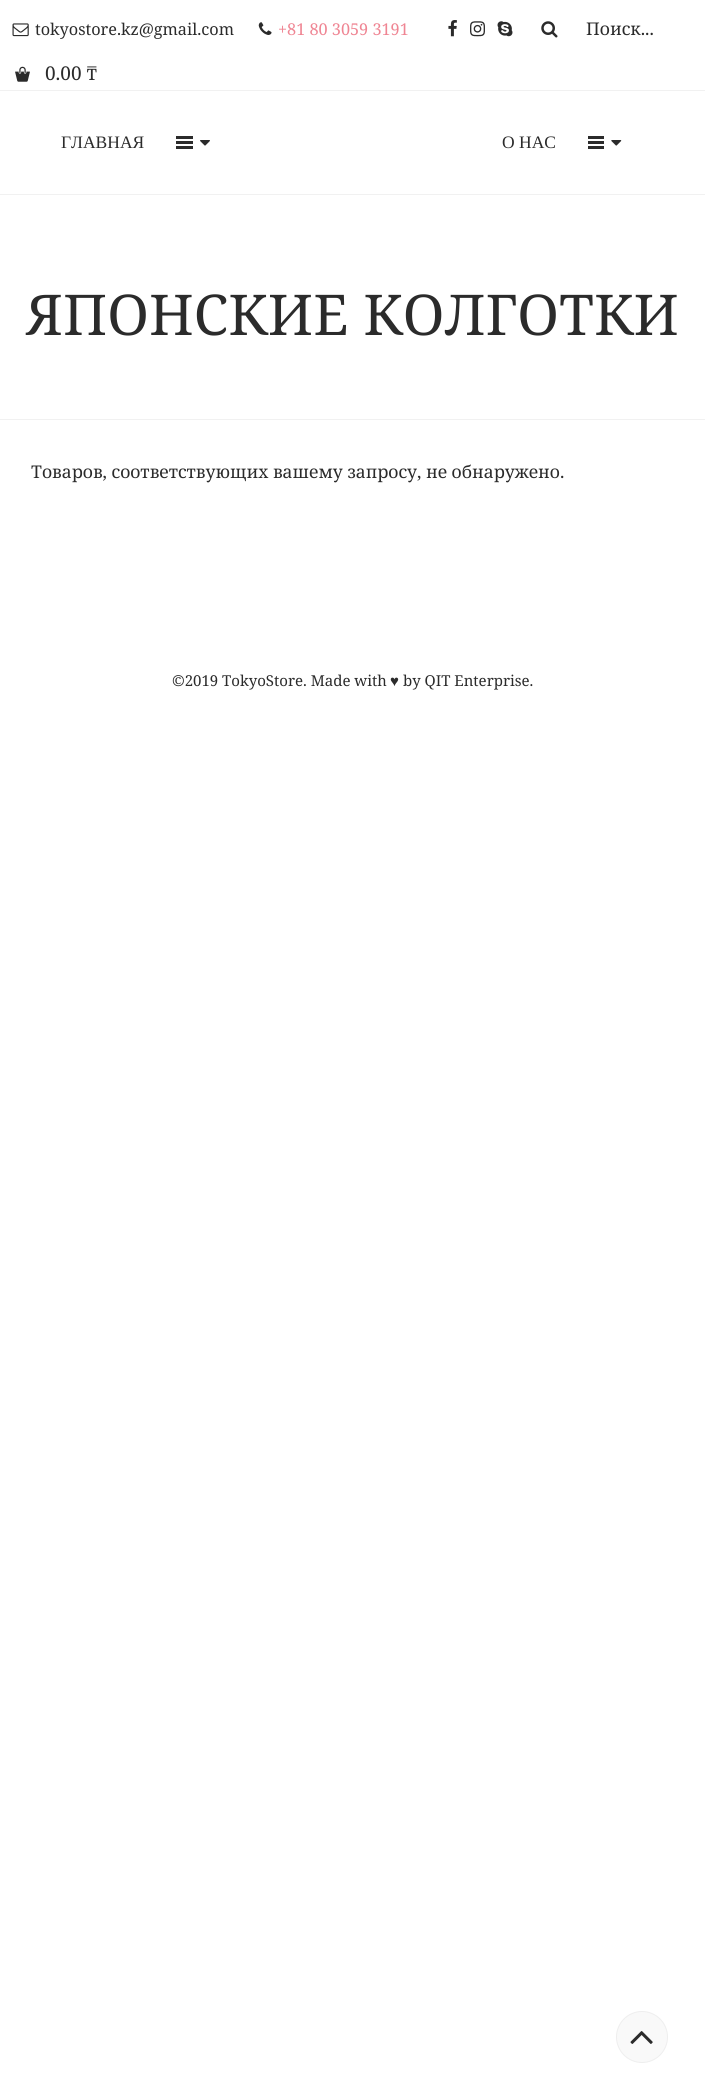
#include <cairo.h>
#include <math.h>
#include <stddef.h>

typedef struct { double x, y, w, h; unsigned color; } box_t;

static void ink(cairo_t *ctx, unsigned color) {
    cairo_set_source_rgb(ctx, (color >> 16) / 255.0, (color >> 8 & 255) / 255.0, (color & 255) / 255.0);
}

static void paste(cairo_t *ctx, const char *path, double x, double y, double w, double h) {
    cairo_surface_t *image = cairo_image_surface_create_from_png(path);
    cairo_save(ctx);
    cairo_set_source_surface(ctx, image, x, y);
    cairo_rectangle(ctx, x, y, w, h);
    cairo_fill(ctx);
    cairo_restore(ctx);
    cairo_surface_destroy(image);
}

int main(void) {
    cairo_surface_t *surface = cairo_image_surface_create(CAIRO_FORMAT_RGB24, 705, 2099);
    cairo_t *ctx = cairo_create(surface);
    cairo_font_options_t *options = cairo_font_options_create();
    cairo_font_options_set_hint_metrics(options, CAIRO_HINT_METRICS_OFF);
    cairo_font_options_set_hint_style(options, CAIRO_HINT_STYLE_NONE);
    cairo_set_font_options(ctx, options);
    cairo_set_miter_limit(ctx, 4);
    ink(ctx, 0xFFFFFF);
    cairo_paint(ctx);
    ink(ctx, 0xF1F1F1);
    cairo_rectangle(ctx, 0, 90, 705, 1);
    cairo_fill(ctx);
    paste(ctx, "media/1.png", 12, 23, 17, 14);
    cairo_select_font_face(ctx, "Noto Serif", CAIRO_FONT_SLANT_NORMAL, CAIRO_FONT_WEIGHT_NORMAL);
    cairo_set_font_size(ctx, 16.25);
    ink(ctx, 0x2B2B2B);
    cairo_move_to(ctx, 35, 35);
    cairo_show_text(ctx, "tokyostore.kz@gmail.com");
    paste(ctx, "media/2.png", 258, 22, 14, 13);
    ink(ctx, 0xEF8593);
    cairo_move_to(ctx, 278, 35);
    cairo_show_text(ctx, "+81 80 3059 3191");
    paste(ctx, "media/3.png", 448, 20, 9, 17);
    paste(ctx, "media/4.png", 470, 21, 15, 16);
    paste(ctx, "media/5.png", 497, 21, 16, 16);
    paste(ctx, "media/6.png", 541, 21, 17, 17);
    cairo_set_font_size(ctx, 17.5);
    ink(ctx, 0x2B2B2B);
    cairo_move_to(ctx, 586, 35);
    cairo_show_text(ctx, "Поиск...");
    paste(ctx, "media/7.png", 15, 66, 15, 16);
    cairo_set_font_size(ctx, 19);
    cairo_move_to(ctx, 45, 80);
    cairo_show_text(ctx, "0.00 ₸");
    ink(ctx, 0xF1F1F1);
    cairo_rectangle(ctx, 0, 194, 705, 1);
    cairo_fill(ctx);
    cairo_select_font_face(ctx, "Liberation Serif", CAIRO_FONT_SLANT_NORMAL, CAIRO_FONT_WEIGHT_NORMAL);
    cairo_set_font_size(ctx, 17.5);
    ink(ctx, 0x2B2B2B);
    cairo_move_to(ctx, 61, 148);
    cairo_show_text(ctx, "ГЛАВНАЯ");
    {
        static const box_t items[] = {
            {176, 136, 17, 3, 0x2B2B2B},
            {176, 141, 17, 3, 0x2B2B2B},
            {176, 146, 17, 3, 0x2B2B2B},
        };
        for (size_t i = 0; i < sizeof items / sizeof *items; i++) {
            ink(ctx, items[i].color);
            cairo_rectangle(ctx, items[i].x, items[i].y, items[i].w, items[i].h);
            cairo_fill(ctx);
        }
    }
    paste(ctx, "media/8.png", 200, 140, 10, 6);
    cairo_move_to(ctx, 502, 148);
    cairo_show_text(ctx, "О НАС");
    {
        static const box_t items[] = {
            {588, 136, 16, 3, 0x2B2B2B},
            {588, 141, 16, 3, 0x2B2B2B},
            {588, 146, 16, 3, 0x2B2B2B},
        };
        for (size_t i = 0; i < sizeof items / sizeof *items; i++) {
            ink(ctx, items[i].color);
            cairo_rectangle(ctx, items[i].x, items[i].y, items[i].w, items[i].h);
            cairo_fill(ctx);
        }
    }
    paste(ctx, "media/9.png", 611, 140, 11, 6);
    ink(ctx, 0xF1F1F1);
    cairo_rectangle(ctx, 0, 419, 705, 1);
    cairo_fill(ctx);
    cairo_select_font_face(ctx, "Noto Serif", CAIRO_FONT_SLANT_NORMAL, CAIRO_FONT_WEIGHT_NORMAL);
    cairo_set_font_size(ctx, 56.25);
    ink(ctx, 0x2B2B2B);
    cairo_move_to(ctx, 26, 335);
    cairo_show_text(ctx, "ЯПОНСКИЕ КОЛГОТКИ");
    cairo_set_font_size(ctx, 17.5);
    cairo_move_to(ctx, 31, 478);
    cairo_show_text(ctx, "Товаров, соответствующих вашему запросу, не обнаружено.");
    cairo_set_font_size(ctx, 15);
    cairo_move_to(ctx, 172, 686);
    cairo_show_text(ctx, "©2019 TokyoStore. Made with");
    cairo_select_font_face(ctx, "Liberation Serif", CAIRO_FONT_SLANT_NORMAL, CAIRO_FONT_WEIGHT_NORMAL);
    cairo_move_to(ctx, 390, 686);
    cairo_show_text(ctx, "♥");
    cairo_select_font_face(ctx, "Noto Serif", CAIRO_FONT_SLANT_NORMAL, CAIRO_FONT_WEIGHT_NORMAL);
    cairo_move_to(ctx, 403, 686);
    cairo_show_text(ctx, "by QIT Enterprise.");
    ink(ctx, 0xF9F9F9);
    cairo_new_path(ctx);
    cairo_arc(ctx, 642, 2037, 25.5, 0, 2 * M_PI);
    cairo_fill_preserve(ctx);
    ink(ctx, 0xEEEEEE);
    cairo_set_line_width(ctx, 1);
    cairo_stroke(ctx);
    paste(ctx, "media/10.png", 630, 2031, 23, 13);
    cairo_surface_write_to_png(surface, "image.png");
    cairo_font_options_destroy(options);
    cairo_destroy(ctx);
    cairo_surface_destroy(surface);
    return 0;
}
